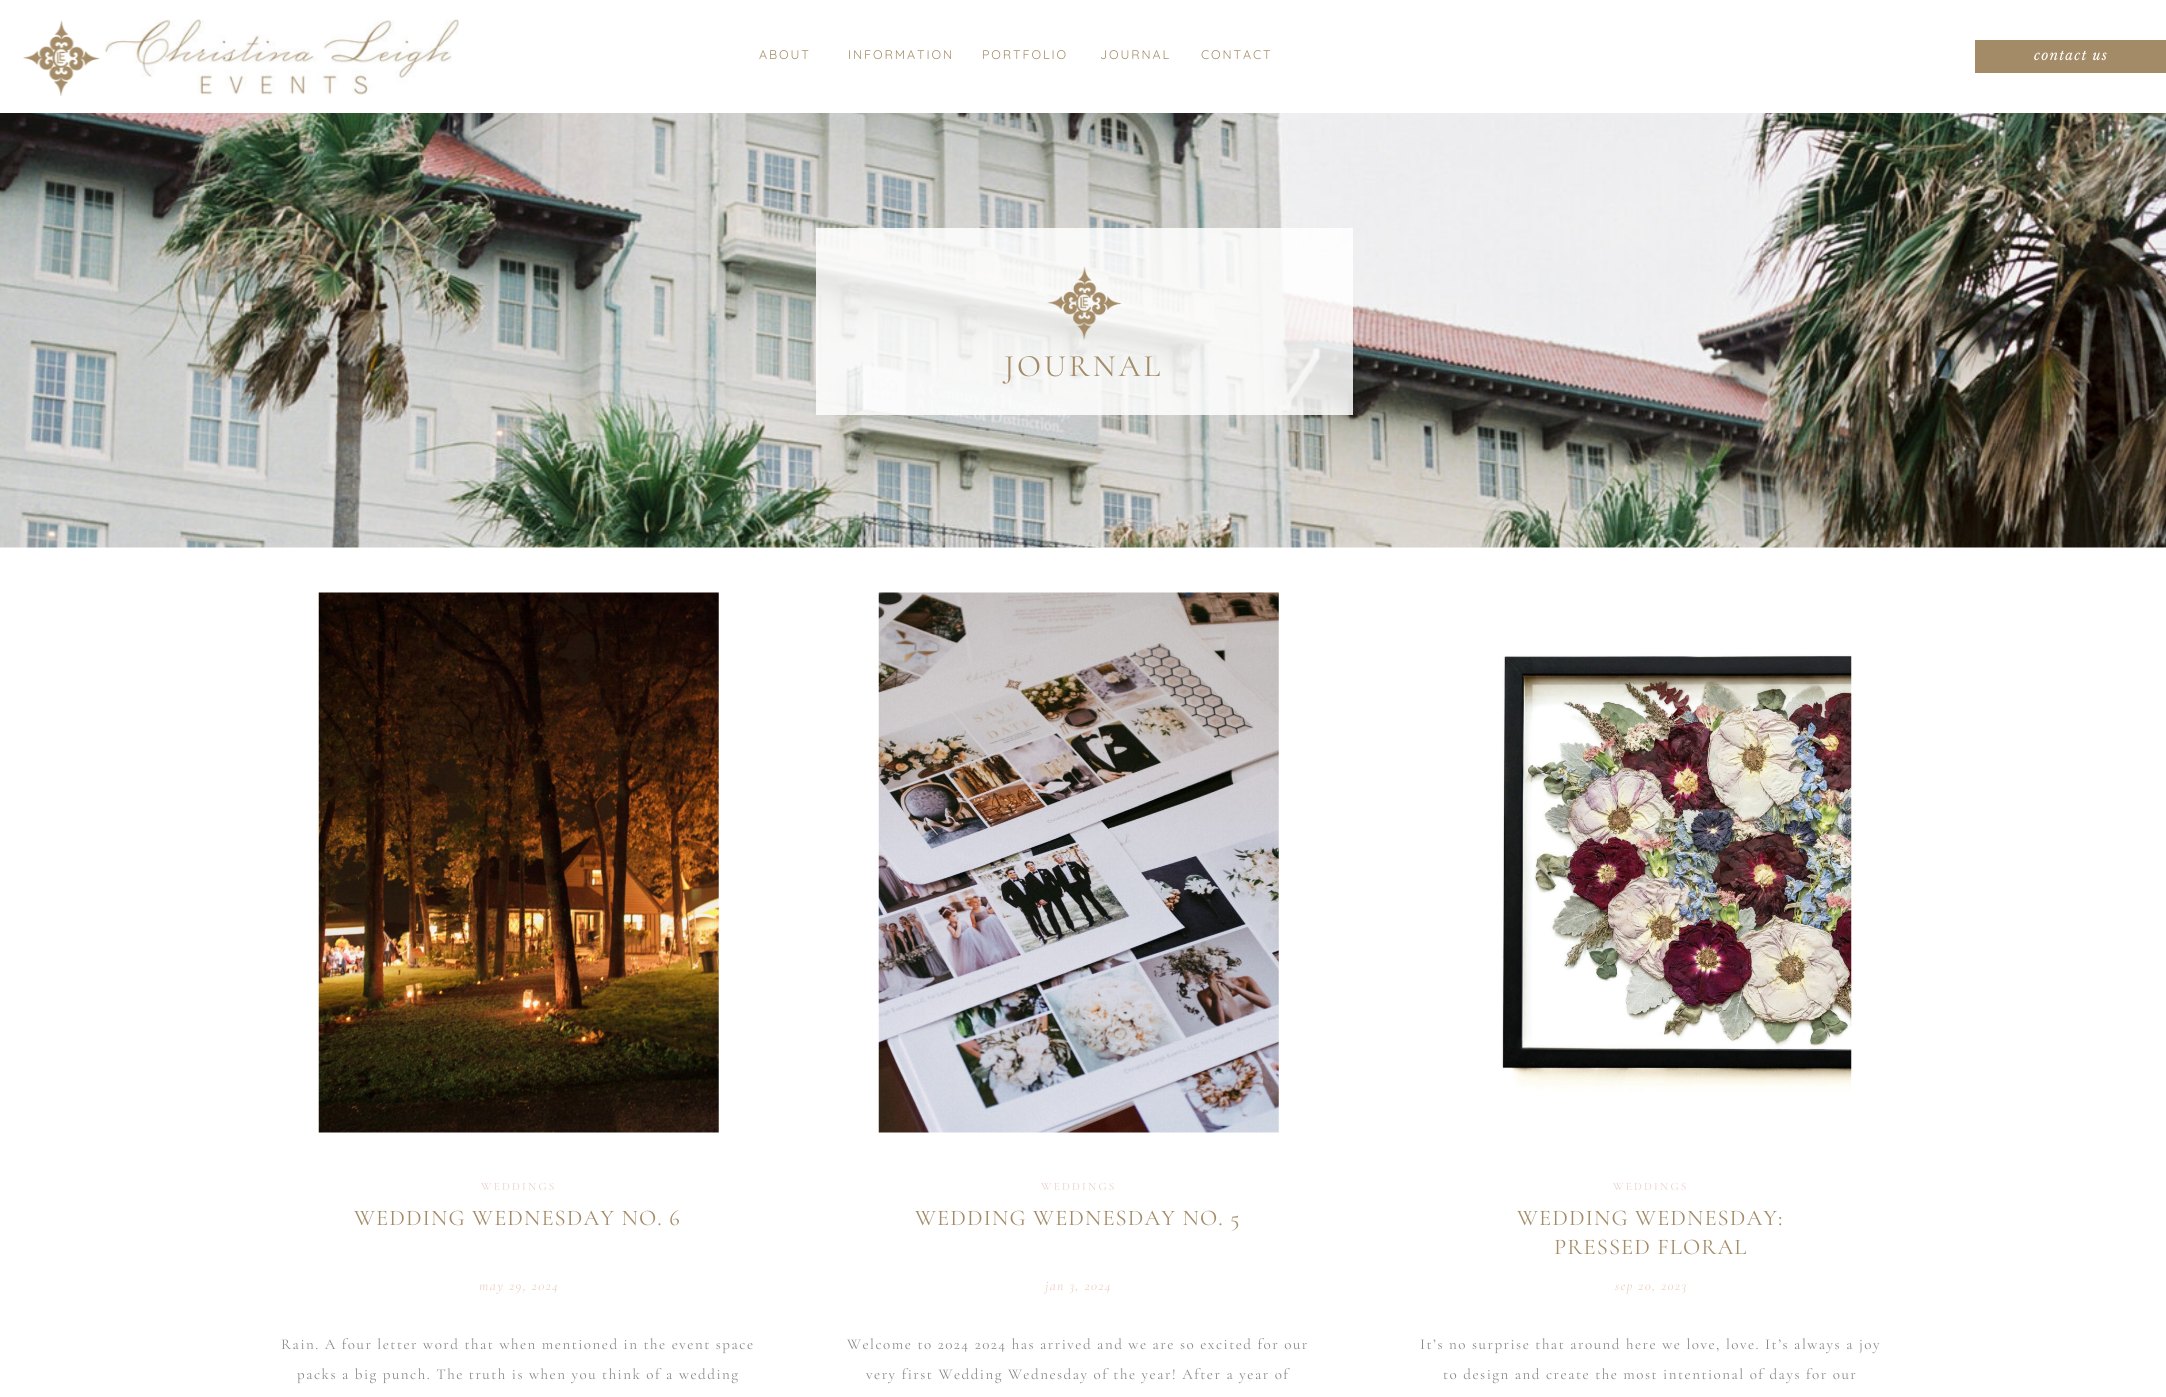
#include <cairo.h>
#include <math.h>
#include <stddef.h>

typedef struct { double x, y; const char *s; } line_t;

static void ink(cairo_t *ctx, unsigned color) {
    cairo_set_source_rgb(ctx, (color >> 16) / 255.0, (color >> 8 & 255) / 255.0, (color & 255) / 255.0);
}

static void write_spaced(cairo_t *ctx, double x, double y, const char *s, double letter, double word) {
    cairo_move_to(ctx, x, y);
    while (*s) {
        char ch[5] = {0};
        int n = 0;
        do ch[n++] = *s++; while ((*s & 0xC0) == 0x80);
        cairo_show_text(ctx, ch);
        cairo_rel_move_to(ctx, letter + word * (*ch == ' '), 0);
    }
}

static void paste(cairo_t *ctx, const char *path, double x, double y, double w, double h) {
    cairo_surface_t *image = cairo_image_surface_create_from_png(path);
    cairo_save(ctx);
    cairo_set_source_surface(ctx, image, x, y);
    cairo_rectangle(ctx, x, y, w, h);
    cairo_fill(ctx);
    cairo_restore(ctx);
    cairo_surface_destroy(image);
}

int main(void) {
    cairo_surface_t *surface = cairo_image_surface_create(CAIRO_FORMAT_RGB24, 2166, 1397);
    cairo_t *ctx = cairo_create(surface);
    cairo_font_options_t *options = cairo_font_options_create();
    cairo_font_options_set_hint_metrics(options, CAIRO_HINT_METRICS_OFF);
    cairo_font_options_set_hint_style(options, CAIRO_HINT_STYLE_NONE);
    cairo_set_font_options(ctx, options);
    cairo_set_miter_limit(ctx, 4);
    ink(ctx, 0xFFFFFF);
    cairo_paint(ctx);
    paste(ctx, "media/1.png", 23, 20, 77, 76);
    paste(ctx, "media/2.png", 105, 19, 354, 76);
    cairo_select_font_face(ctx, "Quicksand Light", CAIRO_FONT_SLANT_NORMAL, CAIRO_FONT_WEIGHT_NORMAL);
    cairo_set_font_size(ctx, 12.5);
    ink(ctx, 0xA48B67);
    {
        static const line_t items[] = {
            {759, 59, "ABOUT"},
            {848, 59, "INFORMATION"},
            {982, 59, "PORTFOLIO"},
            {1100, 59, "JOURNAL"},
            {1201, 59, "CONTACT"},
        };
        for (size_t i = 0; i < sizeof items / sizeof *items; i++) {
            write_spaced(ctx, items[i].x, items[i].y, items[i].s, 1.9, 0);
        }
    }
    cairo_rectangle(ctx, 1975, 40, 191, 33);
    cairo_fill(ctx);
    cairo_select_font_face(ctx, "Libre Baskerville", CAIRO_FONT_SLANT_ITALIC, CAIRO_FONT_WEIGHT_NORMAL);
    cairo_set_font_size(ctx, 13.75);
    ink(ctx, 0xFFFFFF);
    write_spaced(ctx, 2034, 60, "contact us", 1.1, 0);
    paste(ctx, "media/3.png", 0, 113, 2166, 435);
    cairo_set_source_rgba(ctx, 1, 1, 1, 0.85);
    cairo_rectangle(ctx, 816, 228, 537, 187);
    cairo_fill(ctx);
    paste(ctx, "media/4.png", 1047, 266, 75, 74);
    cairo_select_font_face(ctx, "Cormorant Garamond Light", CAIRO_FONT_SLANT_NORMAL, CAIRO_FONT_WEIGHT_NORMAL);
    cairo_set_font_size(ctx, 31.25);
    ink(ctx, 0xA48B67);
    write_spaced(ctx, 1004, 376, "JOURNAL", 3, 0);
    paste(ctx, "media/5.png", 318, 592, 401, 541);
    paste(ctx, "media/6.png", 878, 592, 401, 541);
    paste(ctx, "media/7.png", 1501, 654, 351, 438);
    cairo_set_font_size(ctx, 11.25);
    ink(ctx, 0xE9CEC3);
    {
        static const line_t items[] = {
            {481, 1190, "WEDDINGS"},
            {1041, 1190, "WEDDINGS"},
            {1613, 1190, "WEDDINGS"},
        };
        for (size_t i = 0; i < sizeof items / sizeof *items; i++) {
            write_spaced(ctx, items[i].x, items[i].y, items[i].s, 2.25, 0);
        }
    }
    cairo_set_font_size(ctx, 22.5);
    ink(ctx, 0xA48B67);
    {
        static const line_t items[] = {
            {354, 1225, "WEDDING WEDNESDAY NO. 6"},
            {915, 1225, "WEDDING WEDNESDAY NO. 5"},
            {1517, 1225, "WEDDING WEDNESDAY:"},
            {1554, 1254, "PRESSED FLORAL"},
        };
        for (size_t i = 0; i < sizeof items / sizeof *items; i++) {
            write_spaced(ctx, items[i].x, items[i].y, items[i].s, 1.1, 0);
        }
    }
    cairo_select_font_face(ctx, "Cormorant Garamond Light", CAIRO_FONT_SLANT_ITALIC, CAIRO_FONT_WEIGHT_NORMAL);
    cairo_set_font_size(ctx, 13.75);
    ink(ctx, 0xE9CEC3);
    {
        static const line_t items[] = {
            {479, 1290, "may 29, 2024"},
            {1045, 1290, "jan 3, 2024"},
            {1615, 1290, "sep 20, 2023"},
        };
        for (size_t i = 0; i < sizeof items / sizeof *items; i++) {
            write_spaced(ctx, items[i].x, items[i].y, items[i].s, 1.4, 0);
        }
    }
    cairo_select_font_face(ctx, "Cormorant Garamond Light", CAIRO_FONT_SLANT_NORMAL, CAIRO_FONT_WEIGHT_NORMAL);
    cairo_set_font_size(ctx, 15);
    ink(ctx, 0x888888);
    {
        static const line_t items[] = {
            {281, 1349, "Rain. A four letter word that when mentioned in the event space"},
            {297, 1379, "packs a big punch. The truth is when you think of a wedding"},
            {847, 1349, "Welcome to 2024 2024 has arrived and we are so excited for our"},
            {866, 1379, "very first Wedding Wednesday of the year! After a year of"},
            {1420, 1349, "It’s no surprise that around here we love, love. It’s always a joy"},
            {1443, 1379, "to design and create the most intentional of days for our"},
        };
        for (size_t i = 0; i < sizeof items / sizeof *items; i++) {
            write_spaced(ctx, items[i].x, items[i].y, items[i].s, 1.5, 0);
        }
    }
    cairo_surface_write_to_png(surface, "image.png");
    cairo_font_options_destroy(options);
    cairo_destroy(ctx);
    cairo_surface_destroy(surface);
    return 0;
}
